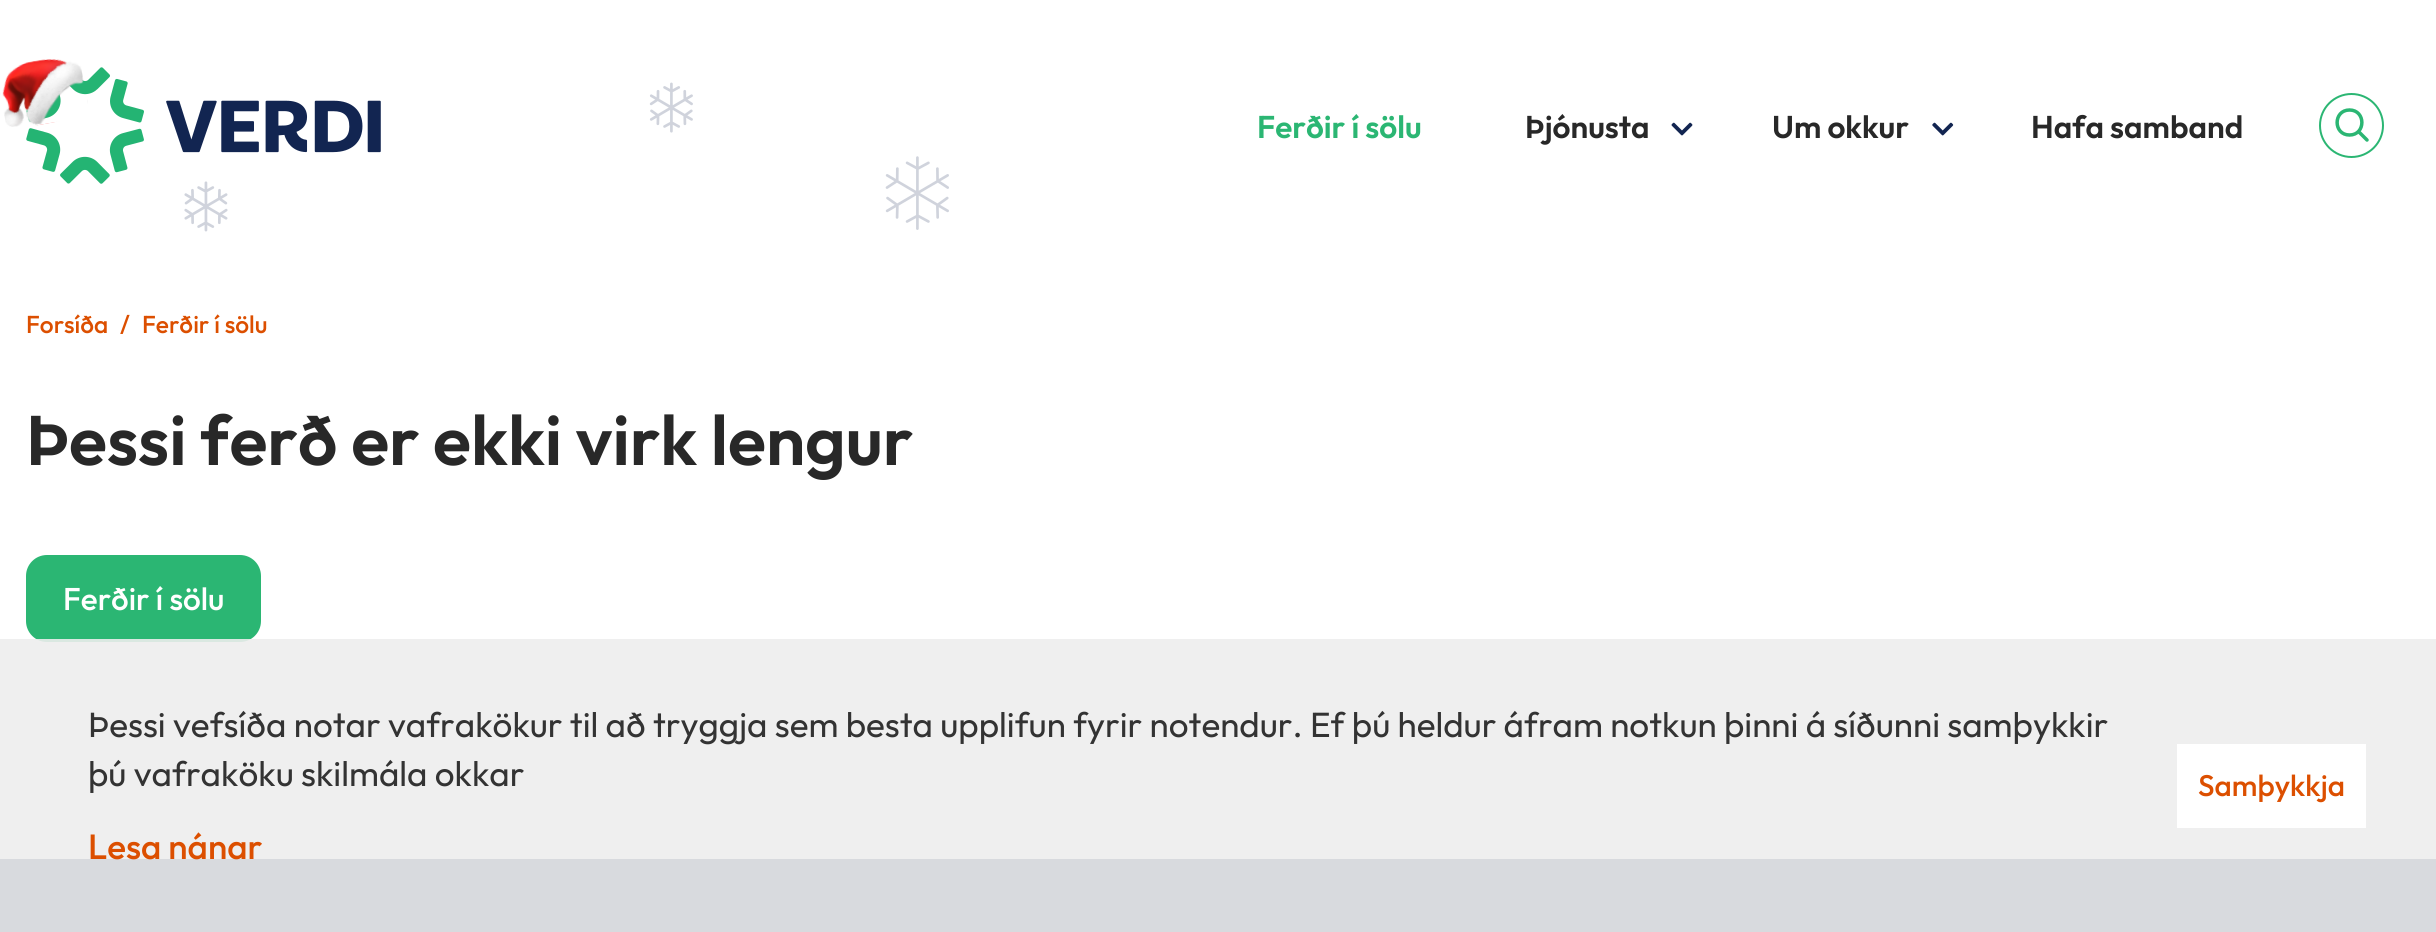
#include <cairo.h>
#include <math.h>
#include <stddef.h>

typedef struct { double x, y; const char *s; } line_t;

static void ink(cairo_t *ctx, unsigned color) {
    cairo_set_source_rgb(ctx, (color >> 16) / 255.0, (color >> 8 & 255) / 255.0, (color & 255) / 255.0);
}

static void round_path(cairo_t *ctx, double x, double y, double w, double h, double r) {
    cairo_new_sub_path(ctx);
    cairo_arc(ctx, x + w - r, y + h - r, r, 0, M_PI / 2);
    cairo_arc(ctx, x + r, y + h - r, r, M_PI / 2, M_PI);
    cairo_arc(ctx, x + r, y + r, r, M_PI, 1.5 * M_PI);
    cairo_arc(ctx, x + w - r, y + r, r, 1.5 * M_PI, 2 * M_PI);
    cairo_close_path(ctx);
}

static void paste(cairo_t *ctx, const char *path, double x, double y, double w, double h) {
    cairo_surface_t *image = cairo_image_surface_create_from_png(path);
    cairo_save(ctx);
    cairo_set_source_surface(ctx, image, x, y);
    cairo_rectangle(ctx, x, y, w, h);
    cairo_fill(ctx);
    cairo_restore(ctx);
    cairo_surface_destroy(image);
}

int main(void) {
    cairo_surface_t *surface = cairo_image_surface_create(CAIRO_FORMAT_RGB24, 2436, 932);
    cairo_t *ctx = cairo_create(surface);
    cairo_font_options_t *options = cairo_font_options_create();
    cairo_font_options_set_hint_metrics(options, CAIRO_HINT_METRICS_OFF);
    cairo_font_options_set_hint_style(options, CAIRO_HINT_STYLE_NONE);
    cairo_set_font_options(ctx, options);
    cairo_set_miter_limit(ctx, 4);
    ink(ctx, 0xFFFFFF);
    cairo_paint(ctx);
    paste(ctx, "media/3.png", 184, 82, 765, 150);
    paste(ctx, "media/2.png", 26, 67, 355, 117);
    paste(ctx, "media/1.png", 0, 59, 88, 68);
    cairo_select_font_face(ctx, "Outfit SemiBold", CAIRO_FONT_SLANT_NORMAL, CAIRO_FONT_WEIGHT_NORMAL);
    cairo_set_font_size(ctx, 31.5);
    ink(ctx, 0x2BB673);
    cairo_move_to(ctx, 1257, 138);
    cairo_show_text(ctx, "Ferðir í sölu");
    ink(ctx, 0x282828);
    cairo_move_to(ctx, 1525, 138);
    cairo_show_text(ctx, "Þjónusta");
    paste(ctx, "media/4.png", 1671, 122, 22, 14);
    cairo_move_to(ctx, 1772, 138);
    cairo_show_text(ctx, "Um okkur");
    paste(ctx, "media/5.png", 1932, 122, 22, 14);
    cairo_move_to(ctx, 2031, 138);
    cairo_show_text(ctx, "Hafa samband");
    cairo_new_path(ctx);
    cairo_arc(ctx, 2351.5, 125.5, 31.5, 0, 2 * M_PI);
    ink(ctx, 0x2BB673);
    cairo_stroke(ctx);
    cairo_new_path(ctx);
    cairo_move_to(ctx, 2349.5, 135);
    cairo_curve_to(ctx, 2366, 135, 2366, 110, 2349.5, 110);
    cairo_curve_to(ctx, 2333, 110, 2333, 135, 2349.5, 135);
    cairo_close_path(ctx);
    cairo_move_to(ctx, 2367, 140);
    cairo_line_to(ctx, 2358.5, 131.5);
    cairo_set_line_width(ctx, 3.5);
    cairo_set_line_cap(ctx, CAIRO_LINE_CAP_ROUND);
    cairo_set_line_join(ctx, CAIRO_LINE_JOIN_ROUND);
    cairo_stroke(ctx);
    cairo_select_font_face(ctx, "Outfit Medium", CAIRO_FONT_SLANT_NORMAL, CAIRO_FONT_WEIGHT_NORMAL);
    cairo_set_font_size(ctx, 24.5);
    ink(ctx, 0xDC4F00);
    {
        static const line_t items[] = {
            {26, 333, "Forsíða"},
            {120, 333, "/"},
            {142, 333, "Ferðir í sölu"},
        };
        for (size_t i = 0; i < sizeof items / sizeof *items; i++) {
            cairo_move_to(ctx, items[i].x, items[i].y);
            cairo_show_text(ctx, items[i].s);
        }
    }
    cairo_select_font_face(ctx, "Outfit SemiBold", CAIRO_FONT_SLANT_NORMAL, CAIRO_FONT_WEIGHT_NORMAL);
    cairo_set_font_size(ctx, 70);
    ink(ctx, 0x282828);
    cairo_move_to(ctx, 26, 465);
    cairo_show_text(ctx, "Þessi ferð er ekki virk lengur");
    ink(ctx, 0x2BB673);
    round_path(ctx, 26, 555, 235, 87, 21);
    cairo_fill(ctx);
    cairo_select_font_face(ctx, "Outfit Medium", CAIRO_FONT_SLANT_NORMAL, CAIRO_FONT_WEIGHT_NORMAL);
    cairo_set_font_size(ctx, 31.5);
    ink(ctx, 0xFFFFFF);
    cairo_move_to(ctx, 63, 610);
    cairo_show_text(ctx, "Ferðir í sölu");
    ink(ctx, 0x122551);
    cairo_rectangle(ctx, 0, 859, 2436, 73);
    cairo_fill(ctx);
    cairo_set_source_rgba(ctx, 0.933, 0.933, 0.933, 0.9);
    cairo_rectangle(ctx, 0, 639, 2436, 293);
    cairo_fill(ctx);
    cairo_select_font_face(ctx, "Outfit", CAIRO_FONT_SLANT_NORMAL, CAIRO_FONT_WEIGHT_NORMAL);
    cairo_set_font_size(ctx, 35);
    ink(ctx, 0x333333);
    cairo_move_to(ctx, 88, 737);
    cairo_show_text(ctx, "Þessi vefsíða notar vafrakökur til að tryggja sem besta upplifun fyrir notendur. Ef þú heldur áfram notkun þinni á síðunni samþykkir");
    cairo_move_to(ctx, 88, 786);
    cairo_show_text(ctx, "þú vafraköku skilmála okkar");
    cairo_select_font_face(ctx, "Outfit Medium", CAIRO_FONT_SLANT_NORMAL, CAIRO_FONT_WEIGHT_NORMAL);
    ink(ctx, 0xDC4F00);
    cairo_move_to(ctx, 88, 859);
    cairo_show_text(ctx, "Lesa nánar");
    ink(ctx, 0xFFFFFF);
    cairo_rectangle(ctx, 2177, 744, 189, 84);
    cairo_fill(ctx);
    cairo_set_font_size(ctx, 29.75);
    ink(ctx, 0xDC4F00);
    cairo_move_to(ctx, 2198, 796);
    cairo_show_text(ctx, "Samþykkja");
    cairo_surface_write_to_png(surface, "image.png");
    cairo_font_options_destroy(options);
    cairo_destroy(ctx);
    cairo_surface_destroy(surface);
    return 0;
}
